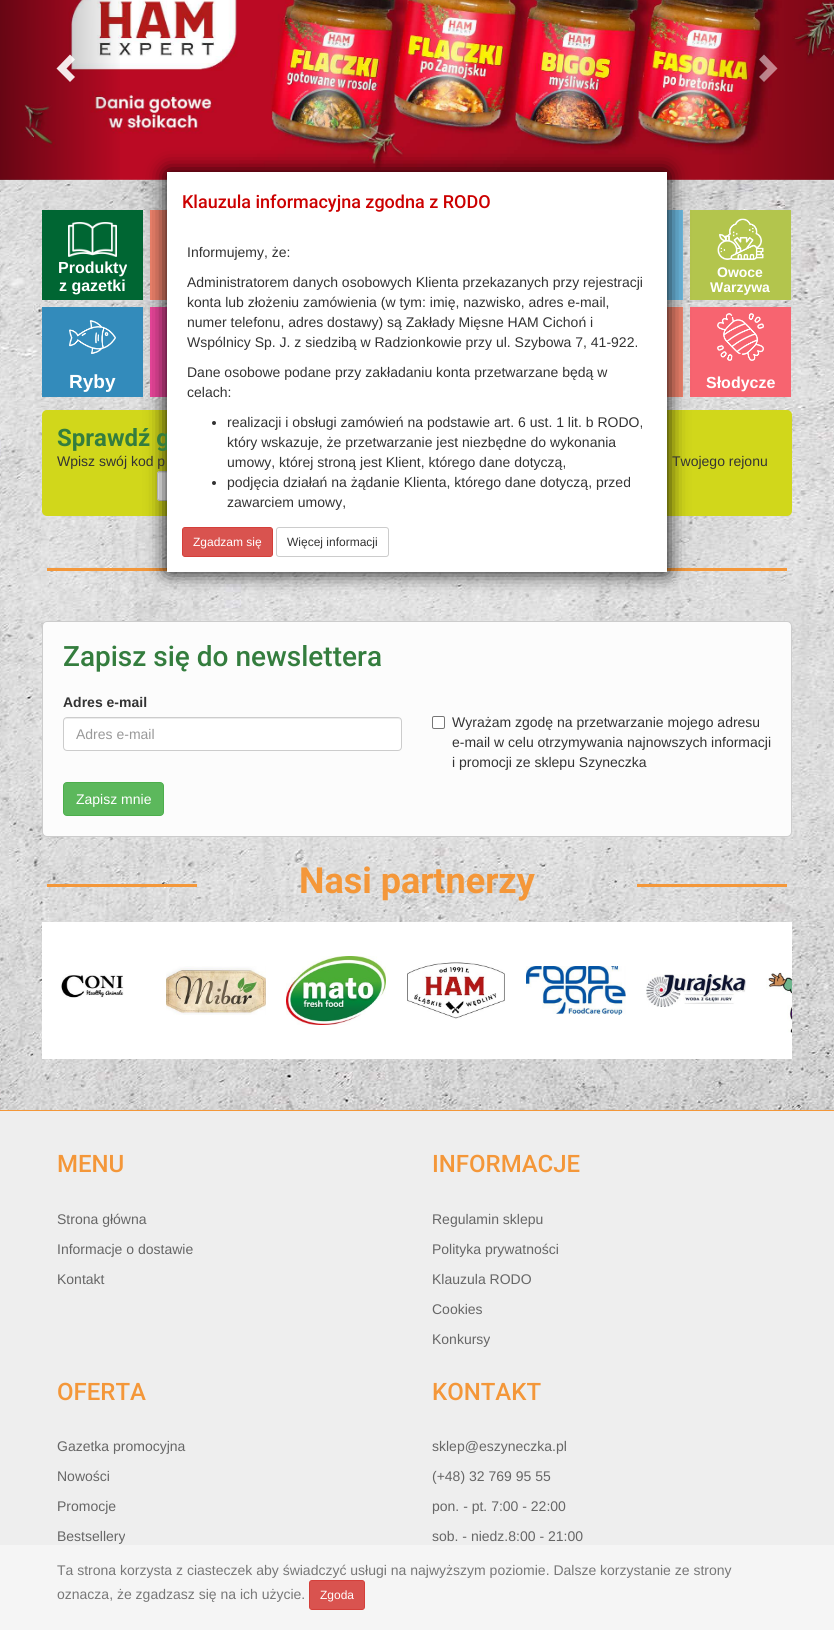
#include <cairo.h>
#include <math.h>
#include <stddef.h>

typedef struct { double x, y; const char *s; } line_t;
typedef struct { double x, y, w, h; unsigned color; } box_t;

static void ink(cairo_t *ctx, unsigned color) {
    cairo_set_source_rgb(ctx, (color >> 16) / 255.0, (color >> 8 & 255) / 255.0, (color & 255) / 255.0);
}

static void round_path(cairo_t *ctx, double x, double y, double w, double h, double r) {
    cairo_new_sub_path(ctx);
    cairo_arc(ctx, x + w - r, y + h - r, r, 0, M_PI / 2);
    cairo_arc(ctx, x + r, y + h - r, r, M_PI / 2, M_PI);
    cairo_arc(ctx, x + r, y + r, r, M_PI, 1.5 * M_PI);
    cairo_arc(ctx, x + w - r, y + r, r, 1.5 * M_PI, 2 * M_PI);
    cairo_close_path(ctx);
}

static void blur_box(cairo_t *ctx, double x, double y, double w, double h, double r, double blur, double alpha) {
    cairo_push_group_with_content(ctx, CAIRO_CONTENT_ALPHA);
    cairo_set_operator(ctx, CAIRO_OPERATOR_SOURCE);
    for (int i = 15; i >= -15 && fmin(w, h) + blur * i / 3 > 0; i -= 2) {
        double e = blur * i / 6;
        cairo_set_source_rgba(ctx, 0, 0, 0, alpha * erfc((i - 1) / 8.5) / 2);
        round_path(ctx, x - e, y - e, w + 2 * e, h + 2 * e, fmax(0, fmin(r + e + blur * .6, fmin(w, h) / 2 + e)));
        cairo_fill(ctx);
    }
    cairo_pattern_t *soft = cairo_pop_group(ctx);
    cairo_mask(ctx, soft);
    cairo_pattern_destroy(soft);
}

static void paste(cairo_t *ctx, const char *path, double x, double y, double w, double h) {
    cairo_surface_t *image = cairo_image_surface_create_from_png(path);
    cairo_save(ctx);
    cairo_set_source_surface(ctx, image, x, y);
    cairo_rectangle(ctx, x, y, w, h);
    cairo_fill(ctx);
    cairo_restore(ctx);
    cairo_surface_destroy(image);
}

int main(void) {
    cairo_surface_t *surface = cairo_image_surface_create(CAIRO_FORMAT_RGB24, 834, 1630);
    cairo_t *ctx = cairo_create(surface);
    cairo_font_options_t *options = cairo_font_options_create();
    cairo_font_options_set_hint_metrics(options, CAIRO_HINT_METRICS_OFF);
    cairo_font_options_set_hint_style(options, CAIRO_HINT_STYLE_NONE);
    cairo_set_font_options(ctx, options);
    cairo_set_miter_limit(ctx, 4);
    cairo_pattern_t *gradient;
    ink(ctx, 0xFFFFFF);
    cairo_paint(ctx);
    paste(ctx, "media/1.png", 0, 179, 834, 931);
    paste(ctx, "media/2.png", 0, 0, 834, 180);
    gradient = cairo_pattern_create_linear(0, 63, 125, 62);
    cairo_pattern_add_color_stop_rgba(gradient, 0, 0, 0, 0, 0.45);
    cairo_pattern_add_color_stop_rgba(gradient, 1, 0, 0, 0, 0);
    cairo_set_source(ctx, gradient);
    cairo_pattern_destroy(gradient);
    cairo_rectangle(ctx, 0, 0, 120, 180);
    cairo_fill(ctx);
    cairo_set_source_rgba(ctx, 1, 1, 1, 0.9);
    cairo_new_path(ctx);
    cairo_move_to(ctx, 75, 59.5);
    cairo_line_to(ctx, 66.5, 68.5);
    cairo_line_to(ctx, 75, 77);
    cairo_line_to(ctx, 70, 82);
    cairo_line_to(ctx, 56.5, 68.5);
    cairo_line_to(ctx, 70, 54.5);
    cairo_close_path(ctx);
    cairo_fill(ctx);
    gradient = cairo_pattern_create_linear(709, 63, 834, 62);
    cairo_pattern_add_color_stop_rgba(gradient, 0, 0, 0, 0, 0);
    cairo_pattern_add_color_stop_rgba(gradient, 1, 0, 0, 0, 0.25);
    cairo_set_source(ctx, gradient);
    cairo_pattern_destroy(gradient);
    cairo_rectangle(ctx, 719, 0, 115, 180);
    cairo_fill(ctx);
    cairo_set_source_rgba(ctx, 1, 1, 1, 0.5);
    cairo_new_path(ctx);
    cairo_move_to(ctx, 777.5, 68.5);
    cairo_line_to(ctx, 764, 82);
    cairo_line_to(ctx, 759, 77);
    cairo_line_to(ctx, 767.5, 68.5);
    cairo_line_to(ctx, 759, 59.5);
    cairo_line_to(ctx, 764, 54.5);
    cairo_close_path(ctx);
    cairo_fill(ctx);
    {
        static const box_t items[] = {
            {42, 210, 101, 90, 0x006633},
            {150, 210, 17, 90, 0xF0836C},
            {667, 210, 16, 90, 0x6CBAE1},
            {690, 210, 101, 90, 0xB3C54D},
            {42, 307, 101, 90, 0x338BBB},
            {150, 307, 17, 90, 0xEC469C},
            {667, 307, 16, 90, 0xF0836C},
            {690, 307, 101, 90, 0xF76470},
        };
        for (size_t i = 0; i < sizeof items / sizeof *items; i++) {
            ink(ctx, items[i].color);
            cairo_rectangle(ctx, items[i].x, items[i].y, items[i].w, items[i].h);
            cairo_fill(ctx);
        }
    }
    ink(ctx, 0xD1D71B);
    round_path(ctx, 42, 410, 750, 106, 5);
    cairo_fill(ctx);
    ink(ctx, 0xFFFFFF);
    cairo_new_path(ctx);
    cairo_move_to(ctx, 160, 471);
    cairo_line_to(ctx, 389, 471);
    cairo_line_to(ctx, 389, 501);
    cairo_line_to(ctx, 160, 501);
    cairo_curve_to(ctx, 158.5, 501, 157, 499.5, 157, 498);
    cairo_line_to(ctx, 157, 474);
    cairo_curve_to(ctx, 157, 472.5, 158.5, 471, 160, 471);
    cairo_close_path(ctx);
    cairo_fill(ctx);
    ink(ctx, 0xECECEC);
    cairo_new_path(ctx);
    cairo_move_to(ctx, 160, 473);
    cairo_line_to(ctx, 388, 473);
    cairo_line_to(ctx, 388, 472);
    cairo_line_to(ctx, 160, 472);
    cairo_line_to(ctx, 159, 473);
    cairo_line_to(ctx, 158, 475);
    cairo_curve_to(ctx, 158, 474, 159, 473, 160, 473);
    cairo_close_path(ctx);
    cairo_fill(ctx);
    cairo_new_path(ctx);
    cairo_move_to(ctx, 160, 471.5);
    cairo_line_to(ctx, 388.5, 471.5);
    cairo_line_to(ctx, 388.5, 500.5);
    cairo_line_to(ctx, 160, 500.5);
    cairo_curve_to(ctx, 158.5, 500.5, 157.5, 499.5, 157.5, 498);
    cairo_line_to(ctx, 157.5, 474);
    cairo_curve_to(ctx, 157.5, 472.5, 158.5, 471.5, 160, 471.5);
    cairo_close_path(ctx);
    ink(ctx, 0xCCCCCC);
    cairo_set_line_width(ctx, 1);
    cairo_stroke(ctx);
    ink(ctx, 0xF49739);
    cairo_rectangle(ctx, 47, 568, 120, 3);
    cairo_fill(ctx);
    cairo_rectangle(ctx, 667, 568, 120, 3);
    cairo_fill(ctx);
    ink(ctx, 0x000000);
    blur_box(ctx, 167, 172, 500, 400, 0, 10, 1);
    cairo_select_font_face(ctx, "Roboto", CAIRO_FONT_SLANT_NORMAL, CAIRO_FONT_WEIGHT_BOLD);
    cairo_set_font_size(ctx, 24);
    ink(ctx, 0x347D3E);
    cairo_move_to(ctx, 57, 446);
    cairo_show_text(ctx, "Sprawdź g");
    ink(ctx, 0xFFFFFF);
    cairo_rectangle(ctx, 167, 172, 500, 400);
    cairo_fill(ctx);
    cairo_select_font_face(ctx, "Roboto Medium", CAIRO_FONT_SLANT_NORMAL, CAIRO_FONT_WEIGHT_NORMAL);
    cairo_set_font_size(ctx, 18);
    ink(ctx, 0xCC0000);
    cairo_move_to(ctx, 182, 208);
    cairo_show_text(ctx, "Klauzula informacyjna zgodna z RODO");
    cairo_select_font_face(ctx, "Liberation Sans", CAIRO_FONT_SLANT_NORMAL, CAIRO_FONT_WEIGHT_NORMAL);
    cairo_set_font_size(ctx, 14);
    ink(ctx, 0x333333);
    {
        static const line_t items[] = {
            {187, 257, "Informujemy, że:"},
            {187, 287, "Administratorem danych osobowych Klienta przekazanych przy rejestracji"},
            {187, 307, "konta lub złożeniu zamówienia (w tym: imię, nazwisko, adres e-mail,"},
            {187, 327, "numer telefonu, adres dostawy) są Zakłady Mięsne HAM Cichoń i"},
            {187, 347, "Wspólnicy Sp. J. z siedzibą w Radzionkowie przy ul. Szybowa 7, 41-922."},
            {187, 377, "Dane osobowe podane przy zakładaniu konta przetwarzane będą w"},
            {187, 397, "celach:"},
        };
        for (size_t i = 0; i < sizeof items / sizeof *items; i++) {
            cairo_move_to(ctx, items[i].x, items[i].y);
            cairo_show_text(ctx, items[i].s);
        }
    }
    cairo_new_path(ctx);
    cairo_arc(ctx, 214, 423, 2, 0, 2 * M_PI);
    cairo_fill(ctx);
    {
        static const line_t items[] = {
            {227, 427, "realizacji i obsługi zamówień na podstawie art. 6 ust. 1 lit. b RODO,"},
            {227, 447, "który wskazuje, że przetwarzanie jest niezbędne do wykonania"},
            {227, 467, "umowy, której stroną jest Klient, którego dane dotyczą,"},
        };
        for (size_t i = 0; i < sizeof items / sizeof *items; i++) {
            cairo_move_to(ctx, items[i].x, items[i].y);
            cairo_show_text(ctx, items[i].s);
        }
    }
    cairo_new_path(ctx);
    cairo_arc(ctx, 214, 483, 2, 0, 2 * M_PI);
    cairo_fill(ctx);
    cairo_move_to(ctx, 227, 487);
    cairo_show_text(ctx, "podjęcia działań na żądanie Klienta, którego dane dotyczą, przed");
    cairo_move_to(ctx, 227, 507);
    cairo_show_text(ctx, "zawarciem umowy,");
    ink(ctx, 0xD9534F);
    round_path(ctx, 182.5, 527.5, 90, 29, 2.5);
    cairo_fill_preserve(ctx);
    ink(ctx, 0xD43F3A);
    cairo_stroke(ctx);
    cairo_set_font_size(ctx, 12);
    ink(ctx, 0xFFFFFF);
    cairo_move_to(ctx, 193, 546);
    cairo_show_text(ctx, "Zgadzam się");
    round_path(ctx, 276.5, 527.5, 112, 29, 2.5);
    ink(ctx, 0xCCCCCC);
    cairo_stroke(ctx);
    ink(ctx, 0x333333);
    cairo_move_to(ctx, 287, 546);
    cairo_show_text(ctx, "Więcej informacji");
    paste(ctx, "media/3.png", 68, 222, 49, 35);
    cairo_select_font_face(ctx, "Liberation Sans", CAIRO_FONT_SLANT_NORMAL, CAIRO_FONT_WEIGHT_BOLD);
    cairo_set_font_size(ctx, 16);
    ink(ctx, 0xFFFFFF);
    cairo_move_to(ctx, 58, 273);
    cairo_show_text(ctx, "Produkty");
    cairo_move_to(ctx, 59, 291);
    cairo_show_text(ctx, "z gazetki");
    paste(ctx, "media/4.png", 717, 218, 47, 42);
    cairo_set_font_size(ctx, 14);
    cairo_move_to(ctx, 717, 277);
    cairo_show_text(ctx, "Owoce");
    cairo_move_to(ctx, 710, 292);
    cairo_show_text(ctx, "Warzywa");
    paste(ctx, "media/5.png", 69, 320, 47, 34);
    cairo_set_font_size(ctx, 19);
    cairo_move_to(ctx, 69, 388);
    cairo_show_text(ctx, "Ryby");
    paste(ctx, "media/6.png", 717, 313, 47, 48);
    cairo_set_font_size(ctx, 16);
    cairo_move_to(ctx, 706, 388);
    cairo_show_text(ctx, "Słodycze");
    cairo_select_font_face(ctx, "Liberation Sans", CAIRO_FONT_SLANT_NORMAL, CAIRO_FONT_WEIGHT_NORMAL);
    cairo_set_font_size(ctx, 14);
    ink(ctx, 0x333333);
    cairo_move_to(ctx, 57, 466);
    cairo_show_text(ctx, "Wpisz swój kod p");
    cairo_move_to(ctx, 672, 466);
    cairo_show_text(ctx, "Twojego rejonu");
    ink(ctx, 0xFCFCFC);
    round_path(ctx, 42.5, 621.5, 749, 215, 4.5);
    cairo_fill_preserve(ctx);
    ink(ctx, 0xCCCCCC);
    cairo_stroke(ctx);
    cairo_select_font_face(ctx, "Roboto Medium", CAIRO_FONT_SLANT_NORMAL, CAIRO_FONT_WEIGHT_NORMAL);
    cairo_set_font_size(ctx, 28);
    ink(ctx, 0x347D3E);
    cairo_move_to(ctx, 63, 666);
    cairo_show_text(ctx, "Zapisz się do newslettera");
    cairo_select_font_face(ctx, "Liberation Sans", CAIRO_FONT_SLANT_NORMAL, CAIRO_FONT_WEIGHT_BOLD);
    cairo_set_font_size(ctx, 14);
    ink(ctx, 0x333333);
    cairo_move_to(ctx, 63, 707);
    cairo_show_text(ctx, "Adres e-mail");
    ink(ctx, 0xFFFFFF);
    round_path(ctx, 63, 717, 339, 34, 4);
    cairo_fill(ctx);
    ink(ctx, 0xECECEC);
    cairo_new_path(ctx);
    cairo_move_to(ctx, 67, 719);
    cairo_line_to(ctx, 398, 719);
    cairo_curve_to(ctx, 400, 719, 401, 720, 401, 722);
    cairo_curve_to(ctx, 401, 720, 400, 718, 398, 718);
    cairo_line_to(ctx, 67, 718);
    cairo_curve_to(ctx, 65, 718, 64, 720, 64, 722);
    cairo_curve_to(ctx, 64, 720, 65, 719, 67, 719);
    cairo_close_path(ctx);
    cairo_fill(ctx);
    round_path(ctx, 63.5, 717.5, 338, 33, 3.5);
    ink(ctx, 0xCCCCCC);
    cairo_stroke(ctx);
    cairo_select_font_face(ctx, "Liberation Sans", CAIRO_FONT_SLANT_NORMAL, CAIRO_FONT_WEIGHT_NORMAL);
    ink(ctx, 0x999999);
    cairo_move_to(ctx, 76, 739);
    cairo_show_text(ctx, "Adres e-mail");
    ink(ctx, 0xFFFFFF);
    round_path(ctx, 432.5, 716.5, 12, 12, 1.5);
    cairo_fill_preserve(ctx);
    ink(ctx, 0x767676);
    cairo_stroke(ctx);
    ink(ctx, 0x333333);
    {
        static const line_t items[] = {
            {452, 727, "Wyrażam zgodę na przetwarzanie mojego adresu"},
            {452, 747, "e-mail w celu otrzymywania najnowszych informacji"},
            {452, 767, "i promocji ze sklepu Szyneczka"},
        };
        for (size_t i = 0; i < sizeof items / sizeof *items; i++) {
            cairo_move_to(ctx, items[i].x, items[i].y);
            cairo_show_text(ctx, items[i].s);
        }
    }
    ink(ctx, 0x5CB85C);
    round_path(ctx, 63.5, 782.5, 100, 33, 3.5);
    cairo_fill_preserve(ctx);
    ink(ctx, 0x4CAE4C);
    cairo_stroke(ctx);
    ink(ctx, 0xFFFFFF);
    cairo_move_to(ctx, 76, 804);
    cairo_show_text(ctx, "Zapisz mnie");
    ink(ctx, 0xF49739);
    cairo_rectangle(ctx, 47, 884, 150, 3);
    cairo_fill(ctx);
    cairo_select_font_face(ctx, "Roboto", CAIRO_FONT_SLANT_NORMAL, CAIRO_FONT_WEIGHT_BOLD);
    cairo_set_font_size(ctx, 36);
    cairo_move_to(ctx, 299, 893);
    cairo_show_text(ctx, "Nasi partnerzy");
    cairo_rectangle(ctx, 637, 884, 150, 3);
    cairo_fill(ctx);
    ink(ctx, 0xFFFFFF);
    cairo_rectangle(ctx, 42, 922, 750, 137);
    cairo_fill(ctx);
    paste(ctx, "media/7.png", 61, 974, 63, 24);
    paste(ctx, "media/8.png", 166, 966, 100, 49);
    paste(ctx, "media/9.png", 286, 956, 100, 69);
    paste(ctx, "media/10.png", 407, 962, 98, 57);
    paste(ctx, "media/11.png", 526, 966, 100, 49);
    paste(ctx, "media/12.png", 646, 974, 100, 33);
    paste(ctx, "media/13.png", 766, 972, 26, 61);
    ink(ctx, 0xEEEEEE);
    cairo_rectangle(ctx, 0, 1111, 834, 434);
    cairo_fill(ctx);
    ink(ctx, 0xF49738);
    cairo_rectangle(ctx, 0, 1110, 834, 1);
    cairo_fill(ctx);
    cairo_select_font_face(ctx, "Roboto Medium", CAIRO_FONT_SLANT_NORMAL, CAIRO_FONT_WEIGHT_NORMAL);
    cairo_set_font_size(ctx, 24);
    ink(ctx, 0xF49739);
    cairo_move_to(ctx, 57, 1172);
    cairo_show_text(ctx, "MENU");
    cairo_select_font_face(ctx, "Liberation Sans", CAIRO_FONT_SLANT_NORMAL, CAIRO_FONT_WEIGHT_NORMAL);
    cairo_set_font_size(ctx, 14);
    ink(ctx, 0x666666);
    {
        static const line_t items[] = {
            {57, 1224, "Strona główna"},
            {57, 1254, "Informacje o dostawie"},
            {57, 1284, "Kontakt"},
        };
        for (size_t i = 0; i < sizeof items / sizeof *items; i++) {
            cairo_move_to(ctx, items[i].x, items[i].y);
            cairo_show_text(ctx, items[i].s);
        }
    }
    cairo_select_font_face(ctx, "Roboto Medium", CAIRO_FONT_SLANT_NORMAL, CAIRO_FONT_WEIGHT_NORMAL);
    cairo_set_font_size(ctx, 24);
    ink(ctx, 0xF49739);
    cairo_move_to(ctx, 432, 1172);
    cairo_show_text(ctx, "INFORMACJE");
    cairo_select_font_face(ctx, "Liberation Sans", CAIRO_FONT_SLANT_NORMAL, CAIRO_FONT_WEIGHT_NORMAL);
    cairo_set_font_size(ctx, 14);
    ink(ctx, 0x666666);
    {
        static const line_t items[] = {
            {432, 1224, "Regulamin sklepu"},
            {432, 1254, "Polityka prywatności"},
            {432, 1284, "Klauzula RODO"},
            {432, 1314, "Cookies"},
            {432, 1344, "Konkursy"},
        };
        for (size_t i = 0; i < sizeof items / sizeof *items; i++) {
            cairo_move_to(ctx, items[i].x, items[i].y);
            cairo_show_text(ctx, items[i].s);
        }
    }
    cairo_select_font_face(ctx, "Roboto Medium", CAIRO_FONT_SLANT_NORMAL, CAIRO_FONT_WEIGHT_NORMAL);
    cairo_set_font_size(ctx, 24);
    ink(ctx, 0xF49739);
    cairo_move_to(ctx, 57, 1400);
    cairo_show_text(ctx, "OFERTA");
    cairo_select_font_face(ctx, "Liberation Sans", CAIRO_FONT_SLANT_NORMAL, CAIRO_FONT_WEIGHT_NORMAL);
    cairo_set_font_size(ctx, 14);
    ink(ctx, 0x666666);
    {
        static const line_t items[] = {
            {57, 1451, "Gazetka promocyjna"},
            {57, 1481, "Nowości"},
            {57, 1511, "Promocje"},
            {57, 1541, "Bestsellery"},
        };
        for (size_t i = 0; i < sizeof items / sizeof *items; i++) {
            cairo_move_to(ctx, items[i].x, items[i].y);
            cairo_show_text(ctx, items[i].s);
        }
    }
    cairo_select_font_face(ctx, "Roboto Medium", CAIRO_FONT_SLANT_NORMAL, CAIRO_FONT_WEIGHT_NORMAL);
    cairo_set_font_size(ctx, 24);
    ink(ctx, 0xF49739);
    cairo_move_to(ctx, 432, 1400);
    cairo_show_text(ctx, "KONTAKT");
    cairo_select_font_face(ctx, "Liberation Sans", CAIRO_FONT_SLANT_NORMAL, CAIRO_FONT_WEIGHT_NORMAL);
    cairo_set_font_size(ctx, 14);
    ink(ctx, 0x666666);
    {
        static const line_t items[] = {
            {432, 1451, "sklep@eszyneczka.pl"},
            {432, 1481, "(+48) 32 769 95 55"},
            {432, 1511, "pon. - pt. 7:00 - 22:00"},
            {432, 1541, "sob. - niedz.8:00 - 21:00"},
        };
        for (size_t i = 0; i < sizeof items / sizeof *items; i++) {
            cairo_move_to(ctx, items[i].x, items[i].y);
            cairo_show_text(ctx, items[i].s);
        }
    }
    ink(ctx, 0xF5F5F5);
    cairo_rectangle(ctx, 0, 1545, 834, 85);
    cairo_fill(ctx);
    ink(ctx, 0x777777);
    cairo_move_to(ctx, 57, 1575);
    cairo_show_text(ctx, "Ta strona korzysta z ciasteczek aby świadczyć usługi na najwyższym poziomie. Dalsze korzystanie ze strony");
    cairo_move_to(ctx, 57, 1599);
    cairo_show_text(ctx, "oznacza, że zgadzasz się na ich użycie.");
    ink(ctx, 0xD9534F);
    round_path(ctx, 309.5, 1580.5, 55, 29, 2.5);
    cairo_fill_preserve(ctx);
    ink(ctx, 0xD43F3A);
    cairo_stroke(ctx);
    cairo_set_font_size(ctx, 12);
    ink(ctx, 0xFFFFFF);
    cairo_move_to(ctx, 320, 1599);
    cairo_show_text(ctx, "Zgoda");
    cairo_surface_write_to_png(surface, "image.png");
    cairo_font_options_destroy(options);
    cairo_destroy(ctx);
    cairo_surface_destroy(surface);
    return 0;
}
